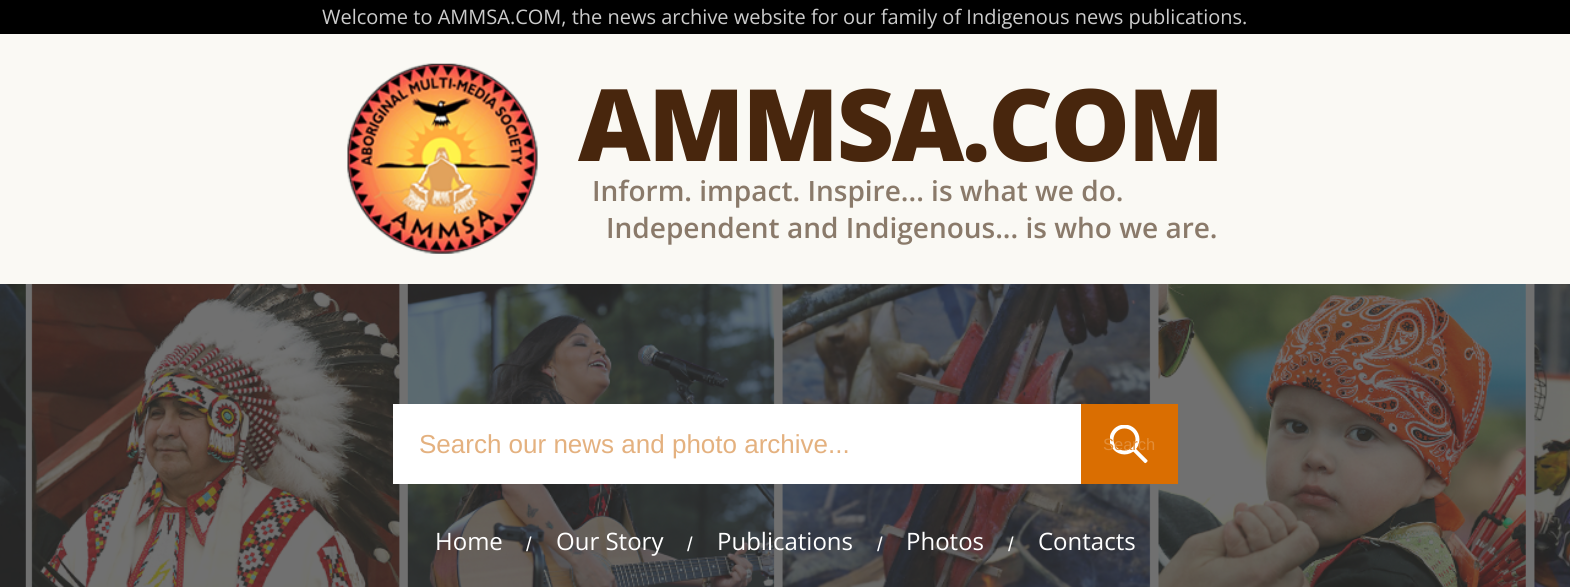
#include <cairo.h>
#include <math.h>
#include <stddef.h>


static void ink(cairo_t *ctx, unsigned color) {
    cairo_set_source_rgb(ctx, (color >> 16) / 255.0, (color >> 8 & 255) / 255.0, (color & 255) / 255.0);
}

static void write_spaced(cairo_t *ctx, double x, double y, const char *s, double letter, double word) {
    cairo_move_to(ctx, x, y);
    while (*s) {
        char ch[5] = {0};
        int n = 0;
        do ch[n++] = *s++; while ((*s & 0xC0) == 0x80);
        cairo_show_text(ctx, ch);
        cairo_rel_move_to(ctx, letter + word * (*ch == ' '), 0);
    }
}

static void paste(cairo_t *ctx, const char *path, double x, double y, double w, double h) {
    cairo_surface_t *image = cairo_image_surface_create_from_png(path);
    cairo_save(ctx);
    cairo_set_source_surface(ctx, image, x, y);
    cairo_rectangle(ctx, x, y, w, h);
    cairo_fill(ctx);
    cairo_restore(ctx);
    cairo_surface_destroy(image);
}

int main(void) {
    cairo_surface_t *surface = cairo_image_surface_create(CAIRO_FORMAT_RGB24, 1570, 587);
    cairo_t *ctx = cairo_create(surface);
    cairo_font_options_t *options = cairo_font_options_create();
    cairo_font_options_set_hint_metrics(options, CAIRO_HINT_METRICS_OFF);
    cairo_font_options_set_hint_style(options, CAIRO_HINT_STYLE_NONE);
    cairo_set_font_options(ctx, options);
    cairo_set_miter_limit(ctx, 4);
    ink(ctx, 0xFFFFFF);
    cairo_paint(ctx);
    ink(ctx, 0x000000);
    cairo_rectangle(ctx, 0, 0, 1570, 34);
    cairo_fill(ctx);
    cairo_select_font_face(ctx, "Open Sans", CAIRO_FONT_SLANT_NORMAL, CAIRO_FONT_WEIGHT_NORMAL);
    cairo_set_font_size(ctx, 20);
    ink(ctx, 0xCCCCCC);
    cairo_move_to(ctx, 322, 24);
    cairo_show_text(ctx, "Welcome to AMMSA.COM, the news archive website for our family of Indigenous news publications.");
    ink(ctx, 0xFAF9F4);
    cairo_rectangle(ctx, 0, 34, 1570, 250);
    cairo_fill(ctx);
    paste(ctx, "media/1.png", 347, 63, 191, 191);
    cairo_select_font_face(ctx, "Open Sans ExtraBold", CAIRO_FONT_SLANT_NORMAL, CAIRO_FONT_WEIGHT_NORMAL);
    cairo_set_font_size(ctx, 100);
    ink(ctx, 0x48260D);
    write_spaced(ctx, 578, 161, "AMMSA.COM", -2.5, 0);
    cairo_select_font_face(ctx, "Open Sans SemiBold", CAIRO_FONT_SLANT_NORMAL, CAIRO_FONT_WEIGHT_NORMAL);
    cairo_set_font_size(ctx, 28);
    ink(ctx, 0x8A7A6A);
    cairo_move_to(ctx, 592, 201);
    cairo_show_text(ctx, "Inform. impact. Inspire... is what we do.");
    cairo_move_to(ctx, 606, 238);
    cairo_show_text(ctx, "Independent and Indigenous... is who we are.");
    paste(ctx, "media/2.png", 0, 284, 1570, 303);
    ink(ctx, 0xFFFFFF);
    cairo_rectangle(ctx, 393, 404, 688, 80);
    cairo_fill(ctx);
    cairo_select_font_face(ctx, "Liberation Sans", CAIRO_FONT_SLANT_NORMAL, CAIRO_FONT_WEIGHT_NORMAL);
    cairo_set_font_size(ctx, 26);
    ink(ctx, 0xE4B17F);
    cairo_move_to(ctx, 419, 453);
    cairo_show_text(ctx, "Search our news and photo archive...");
    ink(ctx, 0xDA6E01);
    cairo_rectangle(ctx, 1081, 404, 97, 80);
    cairo_fill(ctx);
    paste(ctx, "media/3.png", 1110, 425, 38, 39);
    cairo_set_font_size(ctx, 16.5);
    ink(ctx, 0xE28D37);
    cairo_move_to(ctx, 1103, 450);
    cairo_show_text(ctx, "Search");
    cairo_select_font_face(ctx, "Open Sans", CAIRO_FONT_SLANT_NORMAL, CAIRO_FONT_WEIGHT_NORMAL);
    cairo_set_font_size(ctx, 24);
    ink(ctx, 0xFFFFFF);
    cairo_move_to(ctx, 435, 550);
    cairo_show_text(ctx, "Home");
    cairo_select_font_face(ctx, "Liberation Sans", CAIRO_FONT_SLANT_NORMAL, CAIRO_FONT_WEIGHT_NORMAL);
    cairo_set_font_size(ctx, 20);
    cairo_move_to(ctx, 526, 551);
    cairo_show_text(ctx, "/");
    cairo_select_font_face(ctx, "Open Sans", CAIRO_FONT_SLANT_NORMAL, CAIRO_FONT_WEIGHT_NORMAL);
    cairo_set_font_size(ctx, 24);
    cairo_move_to(ctx, 556, 550);
    cairo_show_text(ctx, "Our Story");
    cairo_select_font_face(ctx, "Liberation Sans", CAIRO_FONT_SLANT_NORMAL, CAIRO_FONT_WEIGHT_NORMAL);
    cairo_set_font_size(ctx, 20);
    cairo_move_to(ctx, 687, 551);
    cairo_show_text(ctx, "/");
    cairo_select_font_face(ctx, "Open Sans", CAIRO_FONT_SLANT_NORMAL, CAIRO_FONT_WEIGHT_NORMAL);
    cairo_set_font_size(ctx, 24);
    cairo_move_to(ctx, 717, 550);
    cairo_show_text(ctx, "Publications");
    cairo_select_font_face(ctx, "Liberation Sans", CAIRO_FONT_SLANT_NORMAL, CAIRO_FONT_WEIGHT_NORMAL);
    cairo_set_font_size(ctx, 20);
    cairo_move_to(ctx, 877, 551);
    cairo_show_text(ctx, "/");
    cairo_select_font_face(ctx, "Open Sans", CAIRO_FONT_SLANT_NORMAL, CAIRO_FONT_WEIGHT_NORMAL);
    cairo_set_font_size(ctx, 24);
    cairo_move_to(ctx, 906, 550);
    cairo_show_text(ctx, "Photos");
    cairo_select_font_face(ctx, "Liberation Sans", CAIRO_FONT_SLANT_NORMAL, CAIRO_FONT_WEIGHT_NORMAL);
    cairo_set_font_size(ctx, 20);
    cairo_move_to(ctx, 1008, 551);
    cairo_show_text(ctx, "/");
    cairo_select_font_face(ctx, "Open Sans", CAIRO_FONT_SLANT_NORMAL, CAIRO_FONT_WEIGHT_NORMAL);
    cairo_set_font_size(ctx, 24);
    cairo_move_to(ctx, 1038, 550);
    cairo_show_text(ctx, "Contacts");
    cairo_surface_write_to_png(surface, "image.png");
    cairo_font_options_destroy(options);
    cairo_destroy(ctx);
    cairo_surface_destroy(surface);
    return 0;
}
